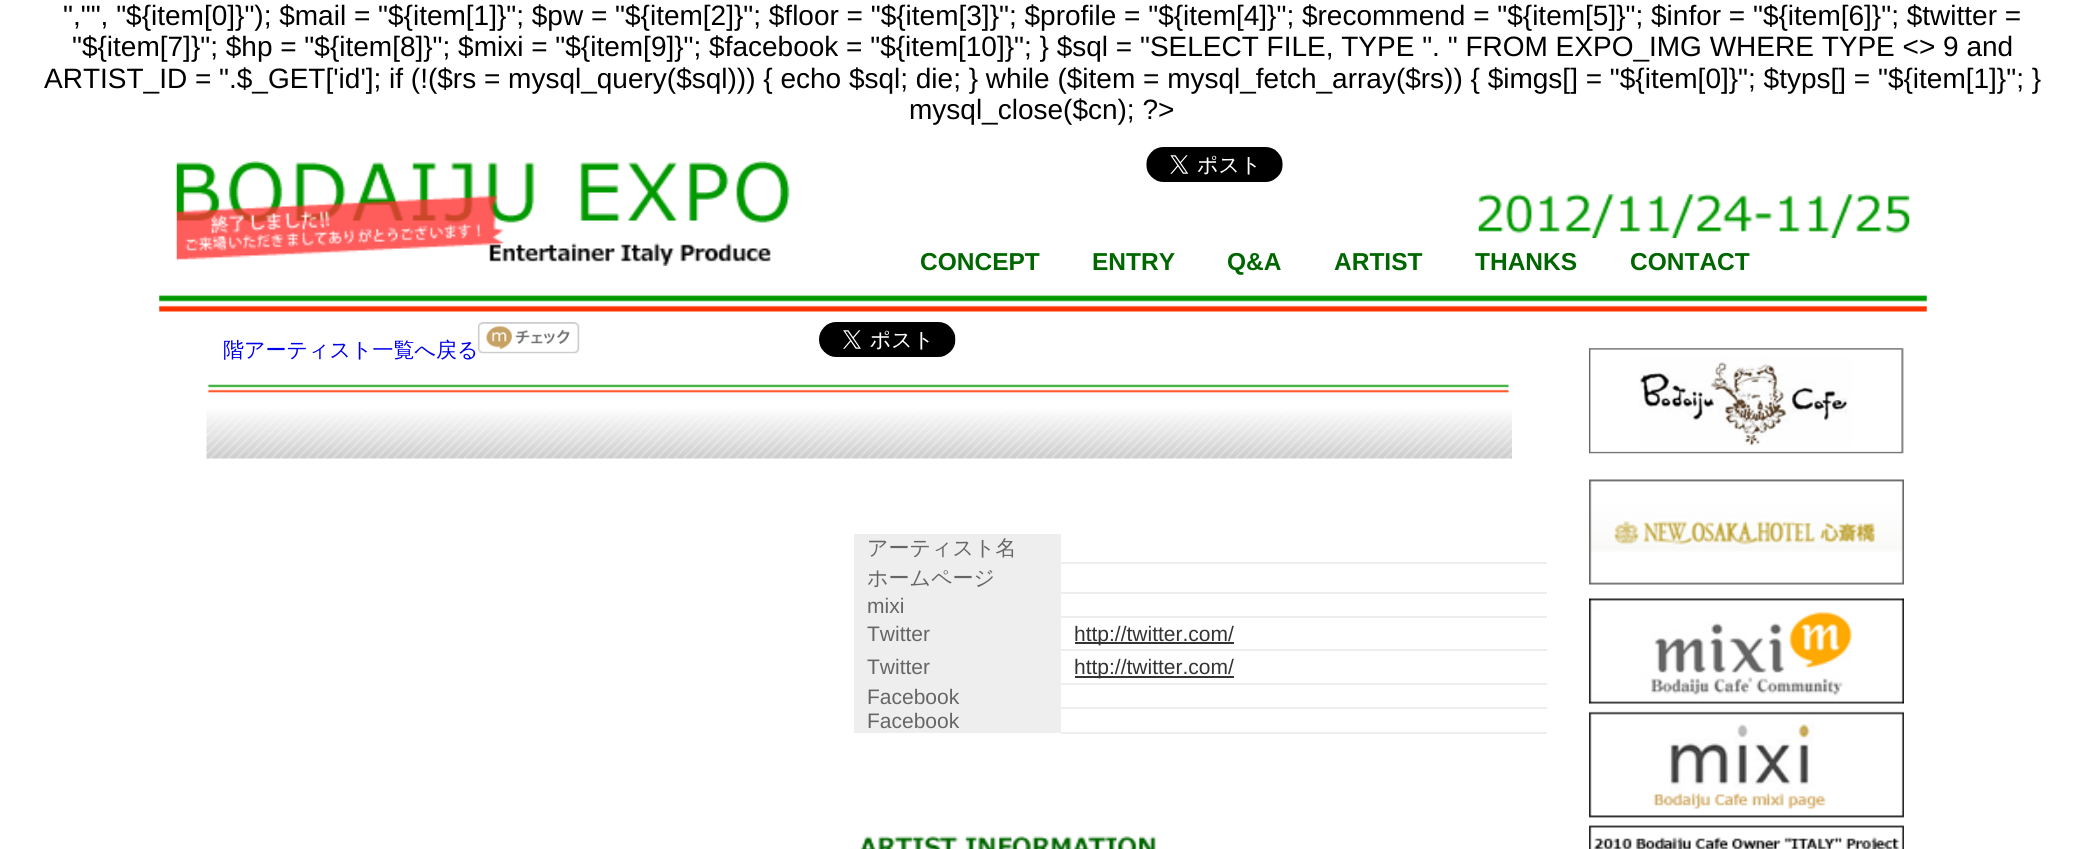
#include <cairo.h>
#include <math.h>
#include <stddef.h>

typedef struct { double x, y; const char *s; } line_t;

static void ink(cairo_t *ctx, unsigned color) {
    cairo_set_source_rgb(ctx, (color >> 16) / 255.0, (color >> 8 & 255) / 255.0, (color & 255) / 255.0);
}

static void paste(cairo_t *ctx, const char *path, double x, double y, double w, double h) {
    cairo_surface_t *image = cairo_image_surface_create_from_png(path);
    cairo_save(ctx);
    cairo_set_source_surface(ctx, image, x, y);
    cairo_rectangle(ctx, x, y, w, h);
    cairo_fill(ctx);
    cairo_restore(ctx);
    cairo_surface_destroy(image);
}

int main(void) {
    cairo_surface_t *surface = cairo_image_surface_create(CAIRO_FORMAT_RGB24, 2083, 849);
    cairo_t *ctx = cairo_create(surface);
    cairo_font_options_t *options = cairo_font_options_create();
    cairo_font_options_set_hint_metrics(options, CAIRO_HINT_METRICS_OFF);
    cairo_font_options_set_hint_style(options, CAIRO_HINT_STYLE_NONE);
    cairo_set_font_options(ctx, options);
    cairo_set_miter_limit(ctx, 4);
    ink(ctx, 0xFFFFFF);
    cairo_paint(ctx);
    cairo_select_font_face(ctx, "Liberation Sans", CAIRO_FONT_SLANT_NORMAL, CAIRO_FONT_WEIGHT_NORMAL);
    cairo_set_font_size(ctx, 28);
    ink(ctx, 0x000000);
    {
        static const line_t items[] = {
            {63, 25, "\",\"\", \"${item[0]}\"); $mail = \"${item[1]}\"; $pw = \"${item[2]}\"; $floor = \"${item[3]}\"; $profile = \"${item[4]}\"; $recommend = \"${item[5]}\"; $infor = \"${item[6]}\"; $twitter ="},
            {72, 56, "\"${item[7]}\"; $hp = \"${item[8]}\"; $mixi = \"${item[9]}\"; $facebook = \"${item[10]}\"; } $sql = \"SELECT FILE, TYPE \". \" FROM EXPO_IMG WHERE TYPE <> 9 and"},
            {44, 88, "ARTIST_ID = \".$_GET['id']; if (!($rs = mysql_query($sql))) { echo $sql; die; } while ($item = mysql_fetch_array($rs)) { $imgs[] = \"${item[0]}\"; $typs[] = \"${item[1]}\"; }"},
            {909, 119, "mysql_close($cn); ?>"},
        };
        for (size_t i = 0; i < sizeof items / sizeof *items; i++) {
            cairo_move_to(ctx, items[i].x, items[i].y);
            cairo_show_text(ctx, items[i].s);
        }
    }
    paste(ctx, "media/1.png", 176, 161, 614, 105);
    paste(ctx, "media/2.png", 1146, 147, 137, 35);
    paste(ctx, "media/3.png", 1478, 194, 432, 44);
    cairo_select_font_face(ctx, "Liberation Sans", CAIRO_FONT_SLANT_NORMAL, CAIRO_FONT_WEIGHT_BOLD);
    cairo_set_font_size(ctx, 24.5);
    ink(ctx, 0x006600);
    {
        static const line_t items[] = {
            {920, 270, "CONCEPT"},
            {1092, 270, "ENTRY"},
            {1227, 270, "Q&A"},
            {1334, 270, "ARTIST"},
            {1475, 270, "THANKS"},
            {1630, 270, "CONTACT"},
        };
        for (size_t i = 0; i < sizeof items / sizeof *items; i++) {
            cairo_move_to(ctx, items[i].x, items[i].y);
            cairo_show_text(ctx, items[i].s);
        }
    }
    paste(ctx, "media/4.png", 159, 295, 1768, 17);
    cairo_select_font_face(ctx, "WenQuanYi Zen Hei Medium", CAIRO_FONT_SLANT_NORMAL, CAIRO_FONT_WEIGHT_NORMAL);
    cairo_set_font_size(ctx, 21);
    ink(ctx, 0x0000EE);
    cairo_move_to(ctx, 223, 357);
    cairo_show_text(ctx, "階アーティスト一覧へ戻る");
    paste(ctx, "media/5.png", 478, 322, 102, 32);
    paste(ctx, "media/6.png", 819, 322, 137, 35);
    paste(ctx, "media/7.png", 206, 384, 1306, 75);
    ink(ctx, 0xEEEEEE);
    cairo_rectangle(ctx, 854, 534, 207, 199);
    cairo_fill(ctx);
    ink(ctx, 0x666666);
    cairo_move_to(ctx, 867, 555);
    cairo_show_text(ctx, "アーティスト名");
    ink(ctx, 0xEEEEEE);
    cairo_rectangle(ctx, 1061, 562, 486, 2);
    cairo_fill(ctx);
    ink(ctx, 0x666666);
    cairo_move_to(ctx, 867, 585);
    cairo_show_text(ctx, "ホームページ");
    ink(ctx, 0xEEEEEE);
    cairo_rectangle(ctx, 1061, 592, 486, 2);
    cairo_fill(ctx);
    cairo_select_font_face(ctx, "Liberation Sans", CAIRO_FONT_SLANT_NORMAL, CAIRO_FONT_WEIGHT_NORMAL);
    ink(ctx, 0x666666);
    cairo_move_to(ctx, 867, 613);
    cairo_show_text(ctx, "mixi");
    ink(ctx, 0xEEEEEE);
    cairo_rectangle(ctx, 1061, 616, 486, 2);
    cairo_fill(ctx);
    ink(ctx, 0x666666);
    cairo_move_to(ctx, 867, 641);
    cairo_show_text(ctx, "Twitter");
    ink(ctx, 0xEEEEEE);
    cairo_rectangle(ctx, 1061, 649, 486, 2);
    cairo_fill(ctx);
    ink(ctx, 0x333333);
    cairo_rectangle(ctx, 1075, 642, 159, 2);
    cairo_fill(ctx);
    cairo_move_to(ctx, 1074, 641);
    cairo_show_text(ctx, "http://twitter.com/");
    ink(ctx, 0x666666);
    cairo_move_to(ctx, 867, 674);
    cairo_show_text(ctx, "Twitter");
    ink(ctx, 0xEEEEEE);
    cairo_rectangle(ctx, 1061, 683, 486, 2);
    cairo_fill(ctx);
    ink(ctx, 0x333333);
    cairo_rectangle(ctx, 1075, 676, 159, 2);
    cairo_fill(ctx);
    cairo_move_to(ctx, 1074, 674);
    cairo_show_text(ctx, "http://twitter.com/");
    ink(ctx, 0x666666);
    cairo_move_to(ctx, 867, 704);
    cairo_show_text(ctx, "Facebook");
    ink(ctx, 0xEEEEEE);
    cairo_rectangle(ctx, 1061, 707, 486, 2);
    cairo_fill(ctx);
    ink(ctx, 0x666666);
    cairo_move_to(ctx, 867, 728);
    cairo_show_text(ctx, "Facebook");
    ink(ctx, 0xEEEEEE);
    cairo_rectangle(ctx, 1061, 732, 486, 2);
    cairo_fill(ctx);
    paste(ctx, "media/8.png", 860, 836, 296, 13);
    paste(ctx, "media/9.png", 1589, 348, 315, 106);
    paste(ctx, "media/10.png", 1589, 479, 315, 106);
    paste(ctx, "media/11.png", 1589, 598, 315, 106);
    paste(ctx, "media/12.png", 1589, 711, 315, 107);
    paste(ctx, "media/13.png", 1589, 825, 315, 24);
    cairo_surface_write_to_png(surface, "image.png");
    cairo_font_options_destroy(options);
    cairo_destroy(ctx);
    cairo_surface_destroy(surface);
    return 0;
}
